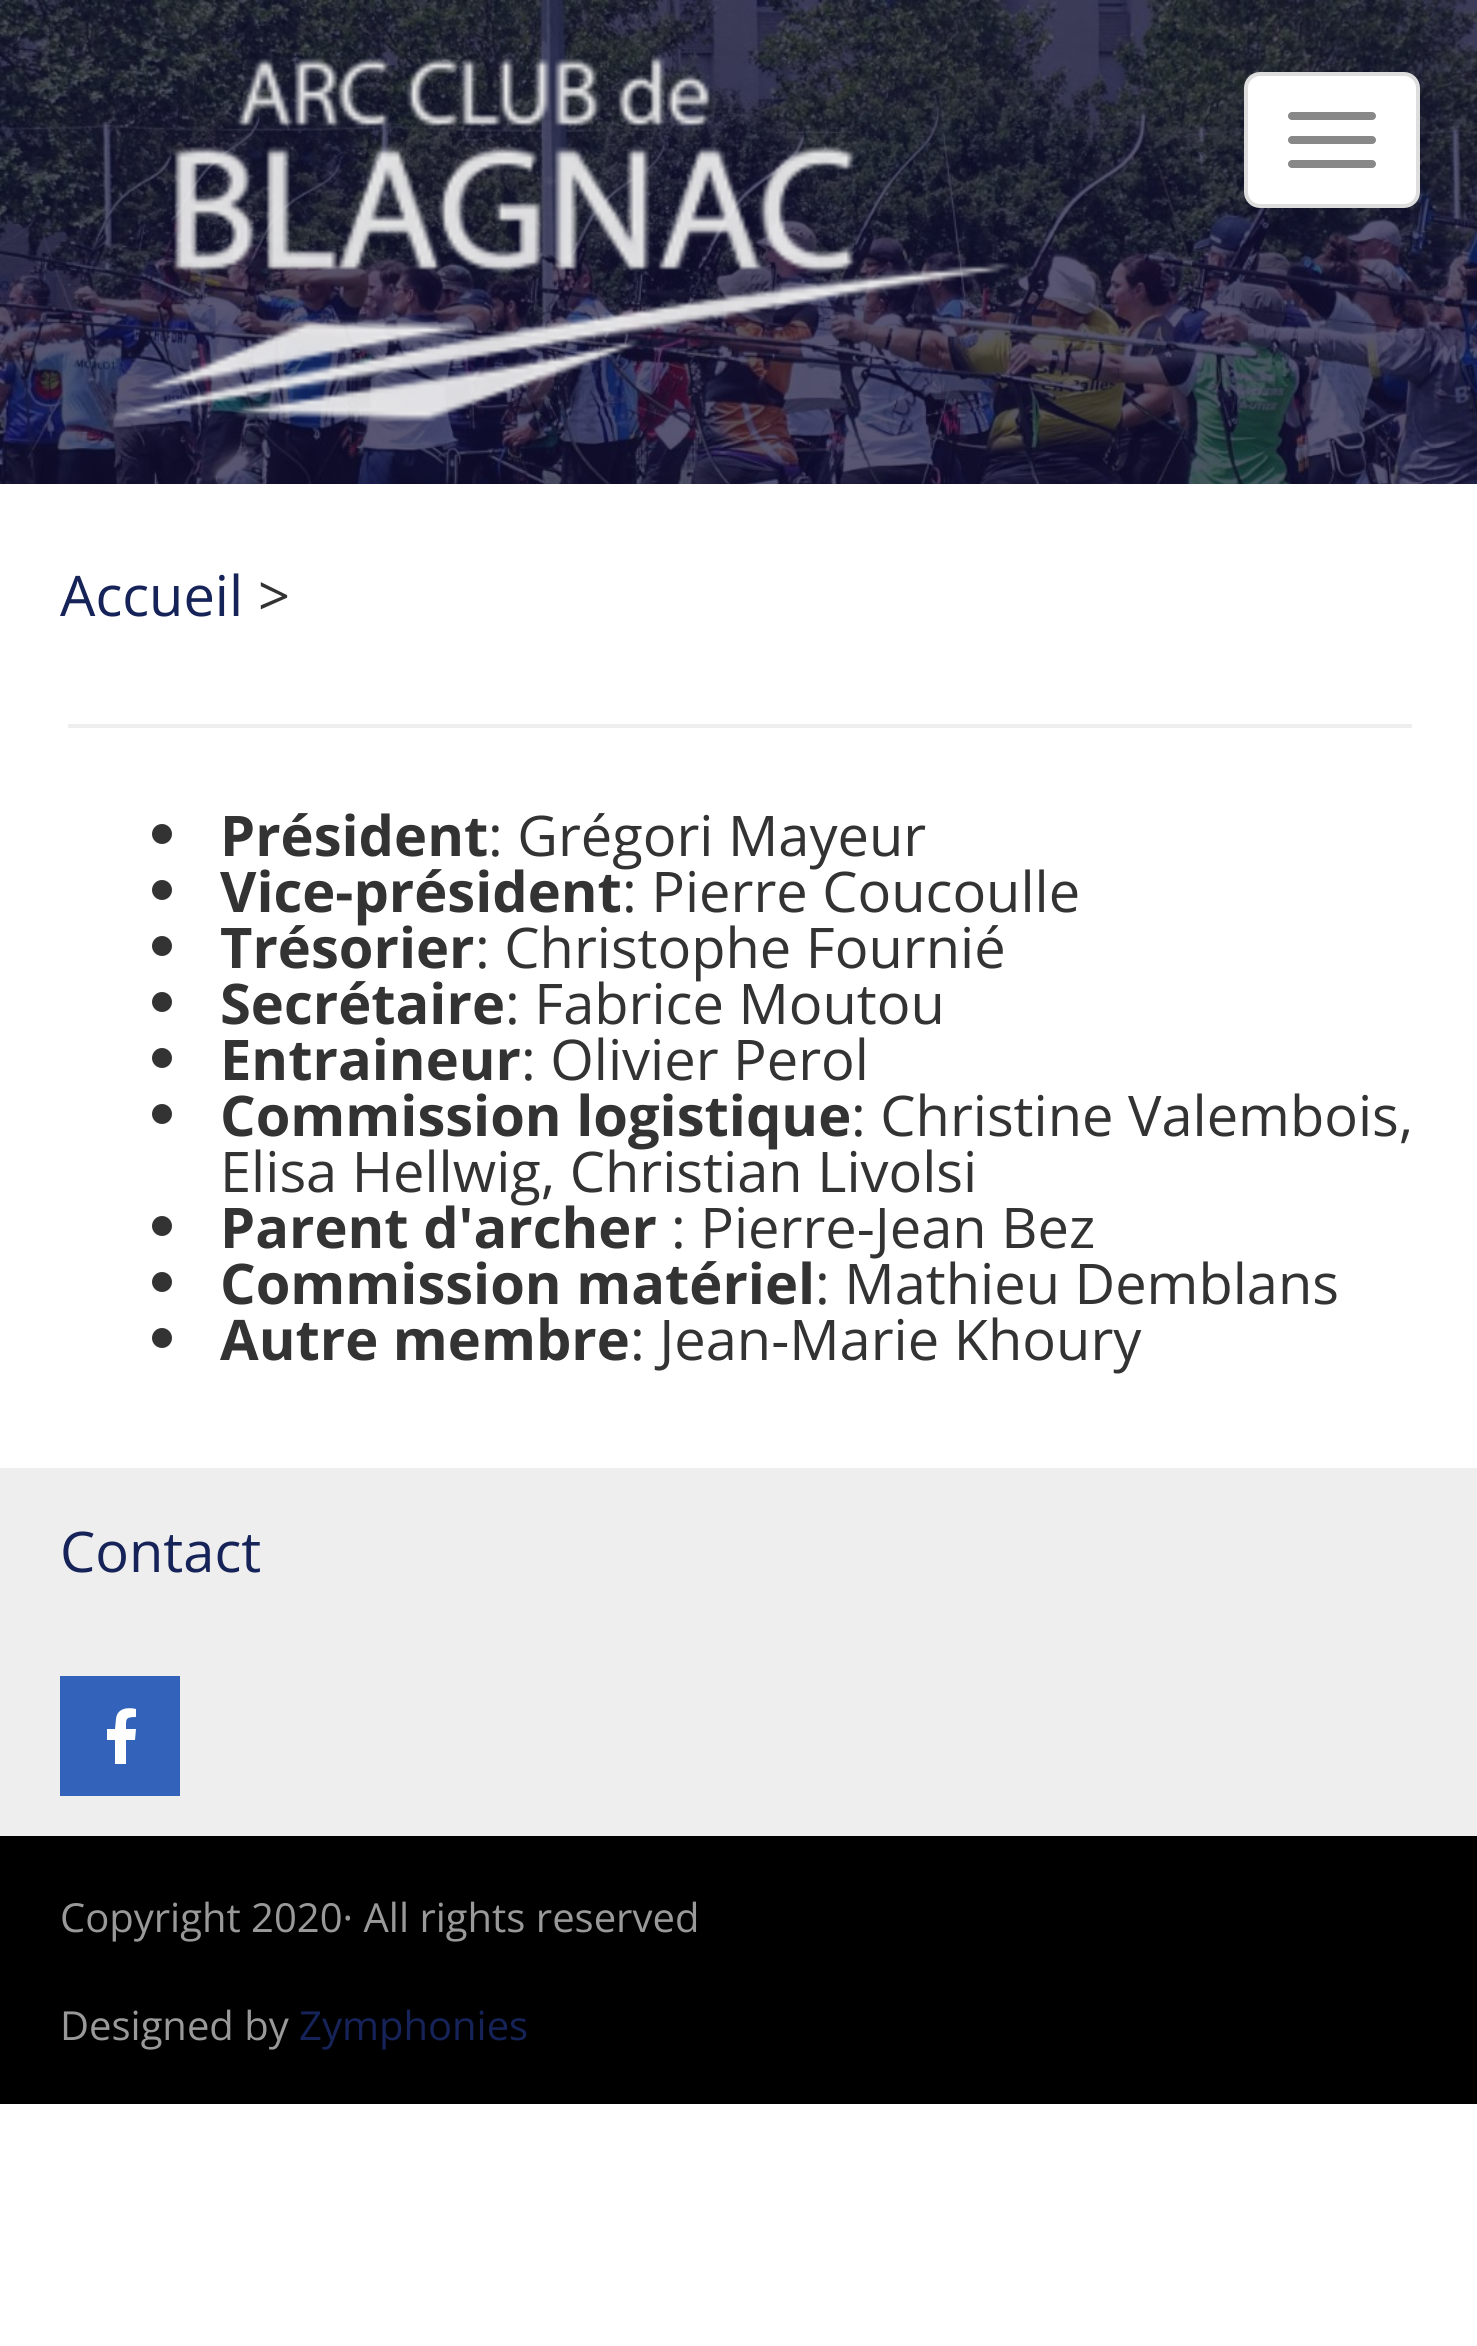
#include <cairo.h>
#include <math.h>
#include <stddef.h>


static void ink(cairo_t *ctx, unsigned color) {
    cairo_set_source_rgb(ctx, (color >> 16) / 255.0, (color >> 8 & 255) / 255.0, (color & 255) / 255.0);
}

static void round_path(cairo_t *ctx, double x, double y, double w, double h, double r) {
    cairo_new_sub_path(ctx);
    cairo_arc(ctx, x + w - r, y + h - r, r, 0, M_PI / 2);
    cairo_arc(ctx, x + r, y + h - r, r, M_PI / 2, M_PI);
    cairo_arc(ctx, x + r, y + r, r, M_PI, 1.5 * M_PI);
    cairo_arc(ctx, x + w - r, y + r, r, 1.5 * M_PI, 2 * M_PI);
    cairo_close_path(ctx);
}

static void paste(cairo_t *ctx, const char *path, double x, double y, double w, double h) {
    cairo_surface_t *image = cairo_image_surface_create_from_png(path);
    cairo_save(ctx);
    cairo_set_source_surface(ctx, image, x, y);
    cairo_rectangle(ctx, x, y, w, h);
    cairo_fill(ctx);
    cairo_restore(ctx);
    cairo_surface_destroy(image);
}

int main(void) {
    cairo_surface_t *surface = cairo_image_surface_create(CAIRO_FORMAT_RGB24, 1477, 2346);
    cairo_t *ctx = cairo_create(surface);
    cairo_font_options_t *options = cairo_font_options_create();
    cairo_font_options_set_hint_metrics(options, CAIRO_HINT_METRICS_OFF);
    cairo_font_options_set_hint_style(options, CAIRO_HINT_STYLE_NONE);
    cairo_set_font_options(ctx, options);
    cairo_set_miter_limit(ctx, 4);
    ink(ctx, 0xFFFFFF);
    cairo_paint(ctx);
    paste(ctx, "media/1.png", 0, 0, 1477, 484);
    paste(ctx, "media/2.png", 110, 55, 902, 367);
    ink(ctx, 0xFFFFFF);
    round_path(ctx, 1246, 74, 172, 132, 14);
    cairo_fill_preserve(ctx);
    ink(ctx, 0xDDDDDD);
    cairo_set_line_width(ctx, 4);
    cairo_stroke(ctx);
    ink(ctx, 0x888888);
    round_path(ctx, 1288, 112, 88, 8, 4);
    cairo_fill(ctx);
    round_path(ctx, 1288, 136, 88, 8, 4);
    cairo_fill(ctx);
    round_path(ctx, 1288, 160, 88, 8, 4);
    cairo_fill(ctx);
    ink(ctx, 0xEEEEEE);
    cairo_rectangle(ctx, 68, 724, 1344, 4);
    cairo_fill(ctx);
    cairo_select_font_face(ctx, "Open Sans", CAIRO_FONT_SLANT_NORMAL, CAIRO_FONT_WEIGHT_NORMAL);
    cairo_set_font_size(ctx, 56);
    ink(ctx, 0x162358);
    cairo_move_to(ctx, 60, 616);
    cairo_show_text(ctx, "Accueil");
    ink(ctx, 0x333333);
    cairo_move_to(ctx, 258, 616);
    cairo_show_text(ctx, ">");
    cairo_new_path(ctx);
    cairo_arc(ctx, 162, 834, 10, 0, 2 * M_PI);
    cairo_fill(ctx);
    cairo_select_font_face(ctx, "Open Sans", CAIRO_FONT_SLANT_NORMAL, CAIRO_FONT_WEIGHT_BOLD);
    cairo_move_to(ctx, 220, 856);
    cairo_show_text(ctx, "Président");
    cairo_select_font_face(ctx, "Open Sans", CAIRO_FONT_SLANT_NORMAL, CAIRO_FONT_WEIGHT_NORMAL);
    cairo_move_to(ctx, 488, 856);
    cairo_show_text(ctx, ": Grégori Mayeur");
    cairo_new_path(ctx);
    cairo_arc(ctx, 162, 890, 10, 0, 2 * M_PI);
    cairo_fill(ctx);
    cairo_select_font_face(ctx, "Open Sans", CAIRO_FONT_SLANT_NORMAL, CAIRO_FONT_WEIGHT_BOLD);
    cairo_move_to(ctx, 220, 912);
    cairo_show_text(ctx, "Vice-président");
    cairo_select_font_face(ctx, "Open Sans", CAIRO_FONT_SLANT_NORMAL, CAIRO_FONT_WEIGHT_NORMAL);
    cairo_move_to(ctx, 622, 912);
    cairo_show_text(ctx, ": Pierre Coucoulle");
    cairo_new_path(ctx);
    cairo_arc(ctx, 162, 946, 10, 0, 2 * M_PI);
    cairo_fill(ctx);
    cairo_select_font_face(ctx, "Open Sans", CAIRO_FONT_SLANT_NORMAL, CAIRO_FONT_WEIGHT_BOLD);
    cairo_move_to(ctx, 220, 968);
    cairo_show_text(ctx, "Trésorier");
    cairo_select_font_face(ctx, "Open Sans", CAIRO_FONT_SLANT_NORMAL, CAIRO_FONT_WEIGHT_NORMAL);
    cairo_move_to(ctx, 475, 968);
    cairo_show_text(ctx, ": Christophe Fournié");
    cairo_new_path(ctx);
    cairo_arc(ctx, 162, 1002, 10, 0, 2 * M_PI);
    cairo_fill(ctx);
    cairo_select_font_face(ctx, "Open Sans", CAIRO_FONT_SLANT_NORMAL, CAIRO_FONT_WEIGHT_BOLD);
    cairo_move_to(ctx, 220, 1024);
    cairo_show_text(ctx, "Secrétaire");
    cairo_select_font_face(ctx, "Open Sans", CAIRO_FONT_SLANT_NORMAL, CAIRO_FONT_WEIGHT_NORMAL);
    cairo_move_to(ctx, 505, 1024);
    cairo_show_text(ctx, ": Fabrice Moutou");
    cairo_new_path(ctx);
    cairo_arc(ctx, 162, 1058, 10, 0, 2 * M_PI);
    cairo_fill(ctx);
    cairo_select_font_face(ctx, "Open Sans", CAIRO_FONT_SLANT_NORMAL, CAIRO_FONT_WEIGHT_BOLD);
    cairo_move_to(ctx, 220, 1080);
    cairo_show_text(ctx, "Entraineur");
    cairo_select_font_face(ctx, "Open Sans", CAIRO_FONT_SLANT_NORMAL, CAIRO_FONT_WEIGHT_NORMAL);
    cairo_move_to(ctx, 521, 1080);
    cairo_show_text(ctx, ": Olivier Perol");
    cairo_new_path(ctx);
    cairo_arc(ctx, 162, 1114, 10, 0, 2 * M_PI);
    cairo_fill(ctx);
    cairo_select_font_face(ctx, "Open Sans", CAIRO_FONT_SLANT_NORMAL, CAIRO_FONT_WEIGHT_BOLD);
    cairo_move_to(ctx, 220, 1136);
    cairo_show_text(ctx, "Commission logistique");
    cairo_select_font_face(ctx, "Open Sans", CAIRO_FONT_SLANT_NORMAL, CAIRO_FONT_WEIGHT_NORMAL);
    cairo_move_to(ctx, 851, 1136);
    cairo_show_text(ctx, ": Christine Valembois,");
    cairo_move_to(ctx, 220, 1192);
    cairo_show_text(ctx, "Elisa Hellwig, Christian Livolsi");
    cairo_new_path(ctx);
    cairo_arc(ctx, 162, 1226, 10, 0, 2 * M_PI);
    cairo_fill(ctx);
    cairo_select_font_face(ctx, "Open Sans", CAIRO_FONT_SLANT_NORMAL, CAIRO_FONT_WEIGHT_BOLD);
    cairo_move_to(ctx, 220, 1248);
    cairo_show_text(ctx, "Parent d'archer");
    cairo_select_font_face(ctx, "Open Sans", CAIRO_FONT_SLANT_NORMAL, CAIRO_FONT_WEIGHT_NORMAL);
    cairo_move_to(ctx, 671, 1248);
    cairo_show_text(ctx, ": Pierre-Jean Bez");
    cairo_new_path(ctx);
    cairo_arc(ctx, 162, 1282, 10, 0, 2 * M_PI);
    cairo_fill(ctx);
    cairo_select_font_face(ctx, "Open Sans", CAIRO_FONT_SLANT_NORMAL, CAIRO_FONT_WEIGHT_BOLD);
    cairo_move_to(ctx, 220, 1304);
    cairo_show_text(ctx, "Commission matériel");
    cairo_select_font_face(ctx, "Open Sans", CAIRO_FONT_SLANT_NORMAL, CAIRO_FONT_WEIGHT_NORMAL);
    cairo_move_to(ctx, 815, 1304);
    cairo_show_text(ctx, ": Mathieu Demblans");
    cairo_new_path(ctx);
    cairo_arc(ctx, 162, 1338, 10, 0, 2 * M_PI);
    cairo_fill(ctx);
    cairo_select_font_face(ctx, "Open Sans", CAIRO_FONT_SLANT_NORMAL, CAIRO_FONT_WEIGHT_BOLD);
    cairo_move_to(ctx, 220, 1360);
    cairo_show_text(ctx, "Autre membre");
    cairo_select_font_face(ctx, "Open Sans", CAIRO_FONT_SLANT_NORMAL, CAIRO_FONT_WEIGHT_NORMAL);
    cairo_move_to(ctx, 630, 1360);
    cairo_show_text(ctx, ": Jean-Marie Khoury");
    ink(ctx, 0xEEEEEE);
    cairo_rectangle(ctx, 0, 1468, 1477, 368);
    cairo_fill(ctx);
    ink(ctx, 0x162358);
    cairo_move_to(ctx, 60, 1572);
    cairo_show_text(ctx, "Contact");
    ink(ctx, 0x3262B9);
    cairo_rectangle(ctx, 60, 1676, 120, 120);
    cairo_fill(ctx);
    ink(ctx, 0xFFFFFF);
    cairo_new_path(ctx);
    cairo_move_to(ctx, 135, 1740);
    cairo_line_to(ctx, 136, 1729);
    cairo_line_to(ctx, 126, 1729);
    cairo_curve_to(ctx, 126, 1719, 125, 1717, 136, 1717);
    cairo_line_to(ctx, 136, 1709);
    cairo_curve_to(ctx, 128, 1707, 117, 1708, 116, 1719);
    cairo_line_to(ctx, 115, 1729);
    cairo_line_to(ctx, 107, 1729);
    cairo_line_to(ctx, 107, 1740);
    cairo_line_to(ctx, 115, 1740);
    cairo_line_to(ctx, 115, 1764);
    cairo_line_to(ctx, 126, 1764);
    cairo_line_to(ctx, 126, 1740);
    cairo_close_path(ctx);
    cairo_fill(ctx);
    ink(ctx, 0x000000);
    cairo_rectangle(ctx, 0, 1836, 1477, 268);
    cairo_fill(ctx);
    cairo_set_font_size(ctx, 40);
    ink(ctx, 0x999999);
    cairo_move_to(ctx, 60, 1932);
    cairo_show_text(ctx, "Copyright 2020· All rights reserved");
    cairo_move_to(ctx, 60, 2040);
    cairo_show_text(ctx, "Designed by");
    ink(ctx, 0x162358);
    cairo_move_to(ctx, 299, 2040);
    cairo_show_text(ctx, "Zymphonies");
    cairo_surface_write_to_png(surface, "image.png");
    cairo_font_options_destroy(options);
    cairo_destroy(ctx);
    cairo_surface_destroy(surface);
    return 0;
}
